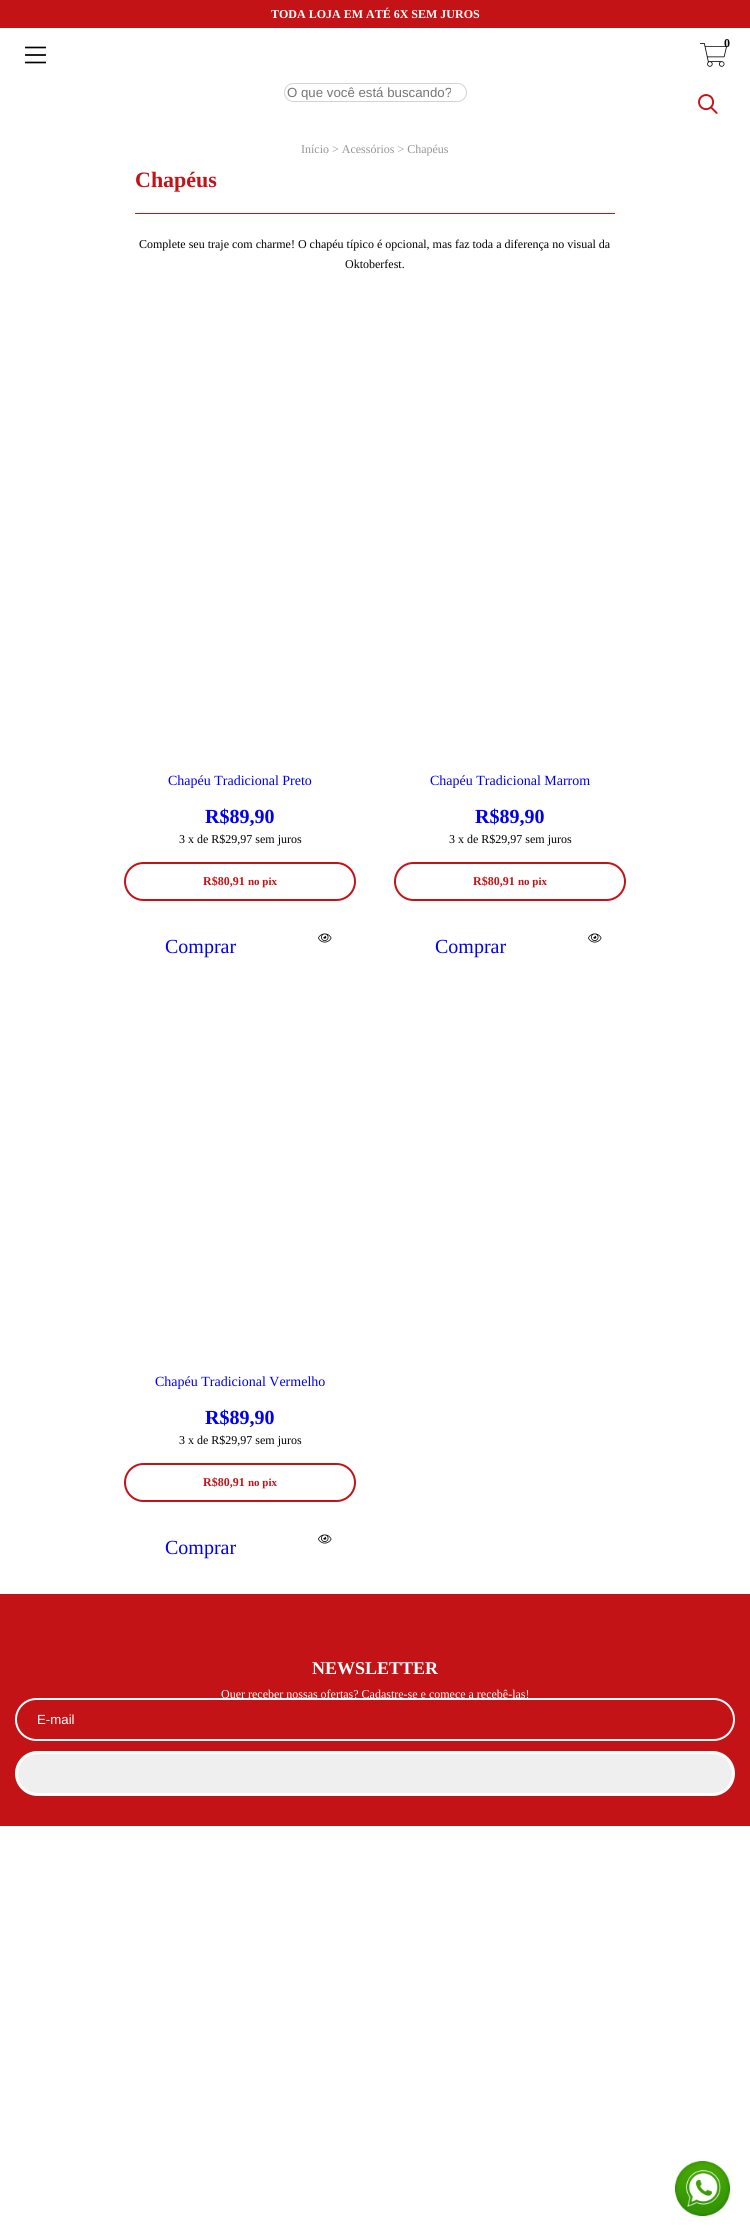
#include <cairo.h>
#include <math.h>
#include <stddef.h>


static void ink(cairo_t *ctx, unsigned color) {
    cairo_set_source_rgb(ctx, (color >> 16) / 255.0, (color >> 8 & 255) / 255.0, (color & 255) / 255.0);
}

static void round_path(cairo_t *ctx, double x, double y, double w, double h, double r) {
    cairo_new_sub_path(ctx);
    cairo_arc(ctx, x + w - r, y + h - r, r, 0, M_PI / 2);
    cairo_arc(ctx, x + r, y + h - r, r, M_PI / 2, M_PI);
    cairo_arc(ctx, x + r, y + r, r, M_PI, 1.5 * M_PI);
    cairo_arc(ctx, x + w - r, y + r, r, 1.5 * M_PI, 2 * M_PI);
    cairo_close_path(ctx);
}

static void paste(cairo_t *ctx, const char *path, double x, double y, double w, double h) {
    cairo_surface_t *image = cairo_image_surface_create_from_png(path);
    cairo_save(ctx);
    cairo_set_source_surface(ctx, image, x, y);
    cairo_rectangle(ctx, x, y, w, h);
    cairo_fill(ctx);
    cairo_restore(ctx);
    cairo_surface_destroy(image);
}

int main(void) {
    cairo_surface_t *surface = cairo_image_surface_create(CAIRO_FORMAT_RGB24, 750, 2240);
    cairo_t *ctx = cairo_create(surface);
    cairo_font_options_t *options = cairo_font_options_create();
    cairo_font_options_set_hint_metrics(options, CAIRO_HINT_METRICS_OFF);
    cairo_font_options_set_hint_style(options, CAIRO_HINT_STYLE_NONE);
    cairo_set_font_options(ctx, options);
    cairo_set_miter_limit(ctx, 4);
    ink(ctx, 0xFFFFFF);
    cairo_paint(ctx);
    ink(ctx, 0xC31317);
    cairo_rectangle(ctx, 0, 0, 750, 28);
    cairo_fill(ctx);
    cairo_select_font_face(ctx, "Liberation Serif", CAIRO_FONT_SLANT_NORMAL, CAIRO_FONT_WEIGHT_BOLD);
    cairo_set_font_size(ctx, 12);
    ink(ctx, 0xFFFFFF);
    cairo_move_to(ctx, 271, 18);
    cairo_show_text(ctx, "TODA LOJA EM ATÉ 6X SEM JUROS");
    paste(ctx, "media/1.png", 700, 43, 27, 24);
    ink(ctx, 0x000000);
    cairo_move_to(ctx, 724, 47);
    cairo_show_text(ctx, "0");
    paste(ctx, "media/2.png", 25, 46, 21, 18);
    round_path(ctx, 284.5, 83.5, 182, 18, 9);
    ink(ctx, 0xD3D3D3);
    cairo_set_line_width(ctx, 1);
    cairo_stroke(ctx);
    cairo_save(ctx);
    cairo_rectangle(ctx, 287, 85, 164, 15);
    cairo_clip(ctx);
    cairo_select_font_face(ctx, "Liberation Sans", CAIRO_FONT_SLANT_NORMAL, CAIRO_FONT_WEIGHT_NORMAL);
    cairo_set_font_size(ctx, 13.25);
    ink(ctx, 0x757575);
    cairo_move_to(ctx, 287, 97);
    cairo_show_text(ctx, "O que você está buscando?");
    cairo_restore(ctx);
    paste(ctx, "media/3.png", 698, 94, 20, 20);
    cairo_select_font_face(ctx, "Liberation Serif", CAIRO_FONT_SLANT_NORMAL, CAIRO_FONT_WEIGHT_NORMAL);
    ink(ctx, 0x969696);
    cairo_move_to(ctx, 301, 153);
    cairo_show_text(ctx, "Início > Acessórios > Chapéus");
    ink(ctx, 0xC31317);
    cairo_rectangle(ctx, 135, 213, 480, 1);
    cairo_fill(ctx);
    cairo_select_font_face(ctx, "Liberation Serif", CAIRO_FONT_SLANT_NORMAL, CAIRO_FONT_WEIGHT_BOLD);
    cairo_set_font_size(ctx, 22);
    cairo_move_to(ctx, 135, 187);
    cairo_show_text(ctx, "Chapéus");
    cairo_select_font_face(ctx, "Liberation Serif", CAIRO_FONT_SLANT_NORMAL, CAIRO_FONT_WEIGHT_NORMAL);
    cairo_set_font_size(ctx, 12);
    ink(ctx, 0x000000);
    cairo_move_to(ctx, 139, 248);
    cairo_show_text(ctx, "Complete seu traje com charme! O chapéu típico é opcional, mas faz toda a diferença no visual da");
    cairo_move_to(ctx, 345, 268);
    cairo_show_text(ctx, "Oktoberfest.");
    cairo_set_font_size(ctx, 14);
    ink(ctx, 0x0000EE);
    cairo_move_to(ctx, 168, 785);
    cairo_show_text(ctx, "Chapéu Tradicional Preto");
    cairo_select_font_face(ctx, "Liberation Serif", CAIRO_FONT_SLANT_NORMAL, CAIRO_FONT_WEIGHT_BOLD);
    cairo_set_font_size(ctx, 20);
    cairo_move_to(ctx, 205, 823);
    cairo_show_text(ctx, "R$89,90");
    cairo_select_font_face(ctx, "Liberation Serif", CAIRO_FONT_SLANT_NORMAL, CAIRO_FONT_WEIGHT_NORMAL);
    cairo_set_font_size(ctx, 12);
    ink(ctx, 0x000000);
    cairo_move_to(ctx, 179, 843);
    cairo_show_text(ctx, "3 x de R$29,97 sem juros");
    round_path(ctx, 125, 863, 230, 37, 18.5);
    ink(ctx, 0xC31317);
    cairo_set_line_width(ctx, 2);
    cairo_stroke(ctx);
    cairo_select_font_face(ctx, "Liberation Serif", CAIRO_FONT_SLANT_NORMAL, CAIRO_FONT_WEIGHT_BOLD);
    cairo_move_to(ctx, 203, 885);
    cairo_show_text(ctx, "R$80,91");
    cairo_set_font_size(ctx, 11);
    cairo_move_to(ctx, 248, 885);
    cairo_show_text(ctx, "no pix");
    paste(ctx, "media/4.png", 318, 933, 14, 10);
    cairo_select_font_face(ctx, "Liberation Serif", CAIRO_FONT_SLANT_NORMAL, CAIRO_FONT_WEIGHT_NORMAL);
    cairo_set_font_size(ctx, 20);
    ink(ctx, 0x0000EE);
    cairo_move_to(ctx, 165, 953);
    cairo_show_text(ctx, "Comprar");
    cairo_set_font_size(ctx, 14);
    cairo_move_to(ctx, 430, 785);
    cairo_show_text(ctx, "Chapéu Tradicional Marrom");
    cairo_select_font_face(ctx, "Liberation Serif", CAIRO_FONT_SLANT_NORMAL, CAIRO_FONT_WEIGHT_BOLD);
    cairo_set_font_size(ctx, 20);
    cairo_move_to(ctx, 475, 823);
    cairo_show_text(ctx, "R$89,90");
    cairo_select_font_face(ctx, "Liberation Serif", CAIRO_FONT_SLANT_NORMAL, CAIRO_FONT_WEIGHT_NORMAL);
    cairo_set_font_size(ctx, 12);
    ink(ctx, 0x000000);
    cairo_move_to(ctx, 449, 843);
    cairo_show_text(ctx, "3 x de R$29,97 sem juros");
    round_path(ctx, 395, 863, 230, 37, 18.5);
    ink(ctx, 0xC31317);
    cairo_stroke(ctx);
    cairo_select_font_face(ctx, "Liberation Serif", CAIRO_FONT_SLANT_NORMAL, CAIRO_FONT_WEIGHT_BOLD);
    cairo_move_to(ctx, 473, 885);
    cairo_show_text(ctx, "R$80,91");
    cairo_set_font_size(ctx, 11);
    cairo_move_to(ctx, 518, 885);
    cairo_show_text(ctx, "no pix");
    paste(ctx, "media/4.png", 588, 933, 14, 10);
    cairo_select_font_face(ctx, "Liberation Serif", CAIRO_FONT_SLANT_NORMAL, CAIRO_FONT_WEIGHT_NORMAL);
    cairo_set_font_size(ctx, 20);
    ink(ctx, 0x0000EE);
    cairo_move_to(ctx, 435, 953);
    cairo_show_text(ctx, "Comprar");
    cairo_set_font_size(ctx, 14);
    cairo_move_to(ctx, 155, 1386);
    cairo_show_text(ctx, "Chapéu Tradicional Vermelho");
    cairo_select_font_face(ctx, "Liberation Serif", CAIRO_FONT_SLANT_NORMAL, CAIRO_FONT_WEIGHT_BOLD);
    cairo_set_font_size(ctx, 20);
    cairo_move_to(ctx, 205, 1424);
    cairo_show_text(ctx, "R$89,90");
    cairo_select_font_face(ctx, "Liberation Serif", CAIRO_FONT_SLANT_NORMAL, CAIRO_FONT_WEIGHT_NORMAL);
    cairo_set_font_size(ctx, 12);
    ink(ctx, 0x000000);
    cairo_move_to(ctx, 179, 1444);
    cairo_show_text(ctx, "3 x de R$29,97 sem juros");
    round_path(ctx, 125, 1464, 230, 37, 18.5);
    ink(ctx, 0xC31317);
    cairo_stroke(ctx);
    cairo_select_font_face(ctx, "Liberation Serif", CAIRO_FONT_SLANT_NORMAL, CAIRO_FONT_WEIGHT_BOLD);
    cairo_move_to(ctx, 203, 1486);
    cairo_show_text(ctx, "R$80,91");
    cairo_set_font_size(ctx, 11);
    cairo_move_to(ctx, 248, 1486);
    cairo_show_text(ctx, "no pix");
    paste(ctx, "media/4.png", 318, 1534, 14, 10);
    cairo_select_font_face(ctx, "Liberation Serif", CAIRO_FONT_SLANT_NORMAL, CAIRO_FONT_WEIGHT_NORMAL);
    cairo_set_font_size(ctx, 20);
    ink(ctx, 0x0000EE);
    cairo_move_to(ctx, 165, 1554);
    cairo_show_text(ctx, "Comprar");
    ink(ctx, 0xC31317);
    cairo_rectangle(ctx, 0, 1594, 750, 232);
    cairo_fill(ctx);
    cairo_select_font_face(ctx, "Liberation Serif", CAIRO_FONT_SLANT_NORMAL, CAIRO_FONT_WEIGHT_BOLD);
    cairo_set_font_size(ctx, 18);
    ink(ctx, 0xFFFFFF);
    cairo_move_to(ctx, 312, 1674);
    cairo_show_text(ctx, "NEWSLETTER");
    cairo_select_font_face(ctx, "Liberation Serif", CAIRO_FONT_SLANT_NORMAL, CAIRO_FONT_WEIGHT_NORMAL);
    cairo_set_font_size(ctx, 12);
    cairo_move_to(ctx, 221, 1698);
    cairo_show_text(ctx, "Quer receber nossas ofertas? Cadastre-se e comece a recebê-las!");
    round_path(ctx, 16, 1699, 718, 41, 20.5);
    cairo_stroke(ctx);
    cairo_select_font_face(ctx, "Liberation Sans", CAIRO_FONT_SLANT_NORMAL, CAIRO_FONT_WEIGHT_NORMAL);
    cairo_set_font_size(ctx, 13.25);
    cairo_move_to(ctx, 37, 1724);
    cairo_show_text(ctx, "E-mail");
    ink(ctx, 0xEFEFEF);
    round_path(ctx, 16.5, 1752.5, 717, 42, 21);
    cairo_fill_preserve(ctx);
    ink(ctx, 0xFFFFFF);
    cairo_set_line_width(ctx, 3);
    cairo_stroke(ctx);
    paste(ctx, "media/5.png", 675, 2161, 55, 55);
    cairo_surface_write_to_png(surface, "image.png");
    cairo_font_options_destroy(options);
    cairo_destroy(ctx);
    cairo_surface_destroy(surface);
    return 0;
}
